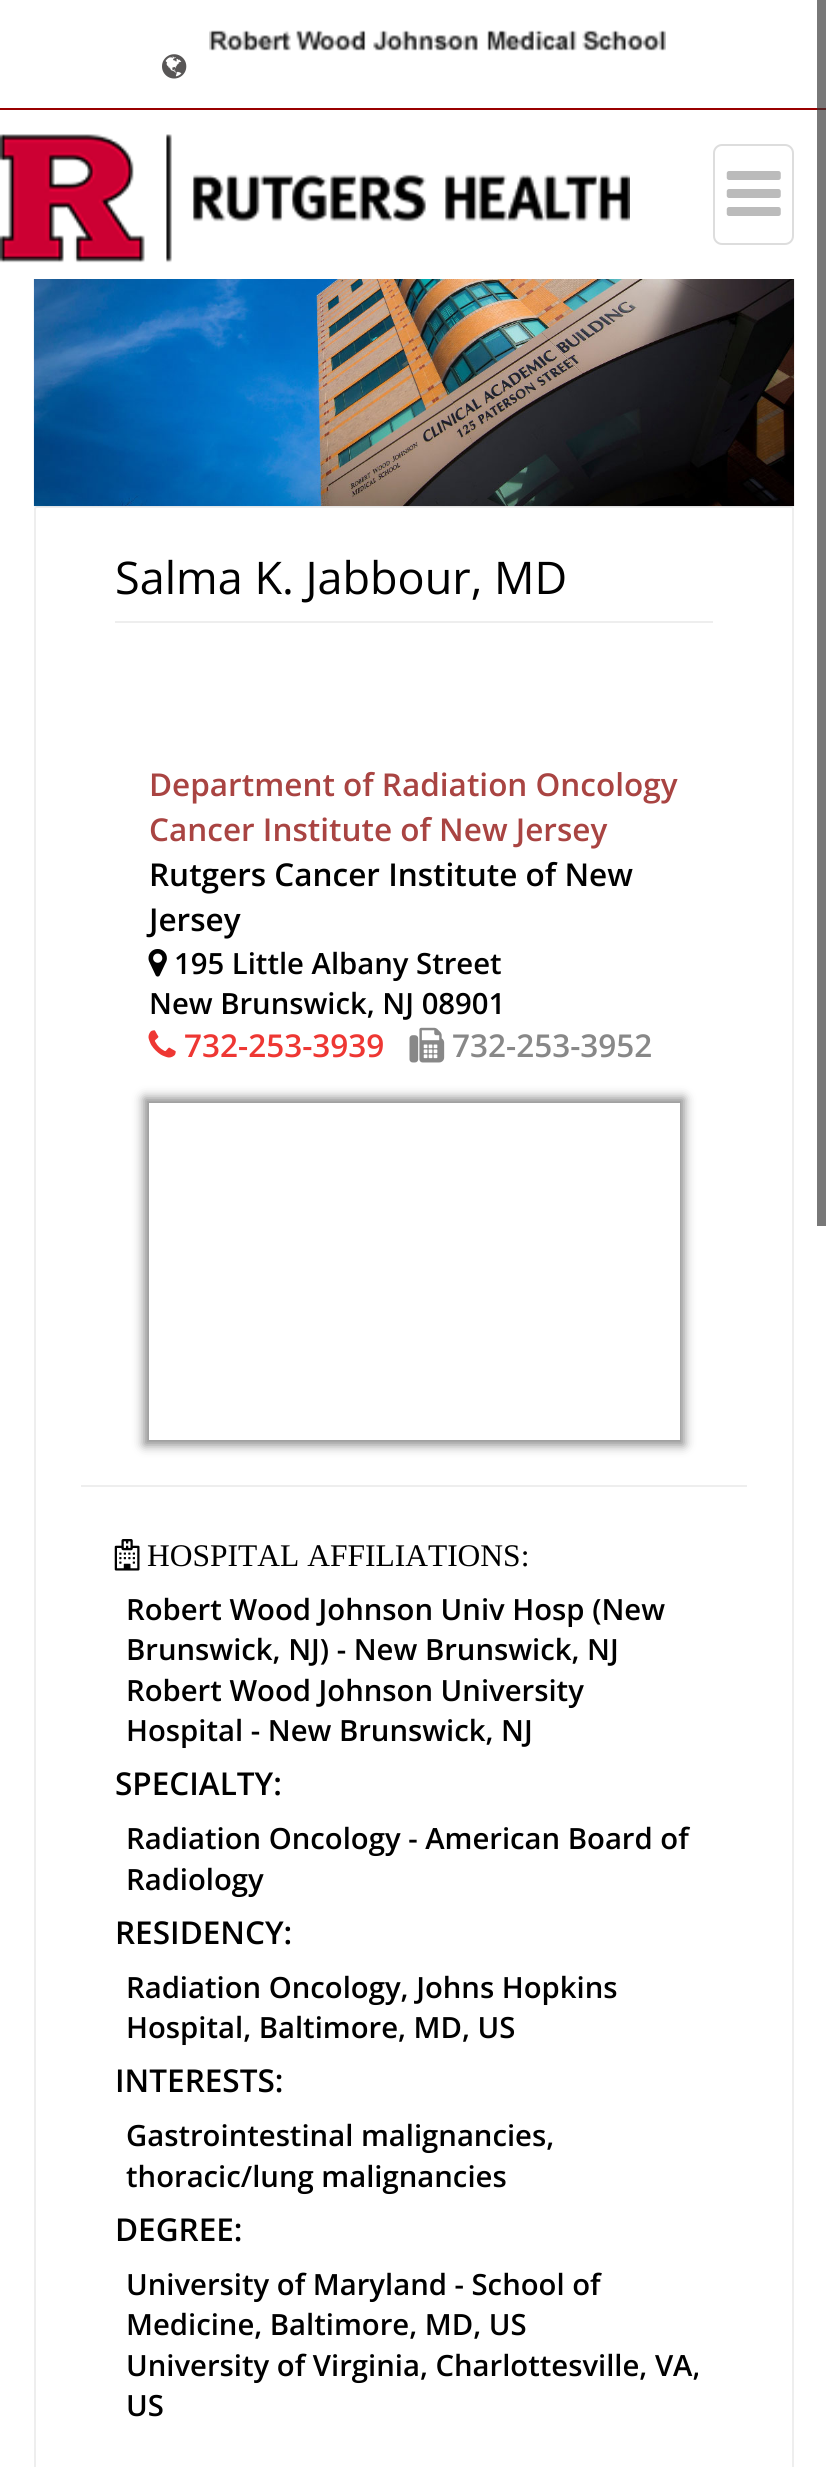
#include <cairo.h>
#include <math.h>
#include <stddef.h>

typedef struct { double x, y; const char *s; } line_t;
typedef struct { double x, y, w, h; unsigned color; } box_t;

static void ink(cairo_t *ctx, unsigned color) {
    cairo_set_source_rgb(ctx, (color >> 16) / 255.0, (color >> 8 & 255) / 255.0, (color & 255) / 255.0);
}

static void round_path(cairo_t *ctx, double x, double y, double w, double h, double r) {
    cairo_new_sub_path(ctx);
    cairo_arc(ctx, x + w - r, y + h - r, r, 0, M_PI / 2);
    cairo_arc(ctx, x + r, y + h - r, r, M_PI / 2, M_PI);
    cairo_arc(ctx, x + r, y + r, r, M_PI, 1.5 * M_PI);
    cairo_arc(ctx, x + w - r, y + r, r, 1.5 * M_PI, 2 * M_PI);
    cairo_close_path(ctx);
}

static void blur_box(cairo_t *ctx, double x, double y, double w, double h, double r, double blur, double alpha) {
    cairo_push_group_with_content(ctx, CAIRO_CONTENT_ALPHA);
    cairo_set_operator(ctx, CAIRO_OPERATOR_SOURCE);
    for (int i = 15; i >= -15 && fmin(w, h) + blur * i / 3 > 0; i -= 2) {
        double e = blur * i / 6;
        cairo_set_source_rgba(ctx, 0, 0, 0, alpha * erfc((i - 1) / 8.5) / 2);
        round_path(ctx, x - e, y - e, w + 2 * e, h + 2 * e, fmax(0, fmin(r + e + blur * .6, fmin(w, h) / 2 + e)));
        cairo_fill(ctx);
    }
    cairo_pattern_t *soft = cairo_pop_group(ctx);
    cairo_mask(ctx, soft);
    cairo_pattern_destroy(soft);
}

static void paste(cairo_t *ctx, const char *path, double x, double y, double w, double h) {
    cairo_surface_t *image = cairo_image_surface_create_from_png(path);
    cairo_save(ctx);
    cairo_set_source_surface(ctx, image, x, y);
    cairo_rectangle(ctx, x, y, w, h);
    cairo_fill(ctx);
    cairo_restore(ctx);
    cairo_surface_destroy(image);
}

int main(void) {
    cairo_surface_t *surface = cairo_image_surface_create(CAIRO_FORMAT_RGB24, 826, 2467);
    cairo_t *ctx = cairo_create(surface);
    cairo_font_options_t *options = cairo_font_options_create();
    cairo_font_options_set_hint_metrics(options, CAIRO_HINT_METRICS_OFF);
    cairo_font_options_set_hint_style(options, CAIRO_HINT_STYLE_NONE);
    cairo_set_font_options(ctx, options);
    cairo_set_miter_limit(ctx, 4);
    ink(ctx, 0xFFFFFF);
    cairo_paint(ctx);
    {
        static const box_t items[] = {
            {817, 0, 9, 1226, 0x787878},
            {0, 108, 817, 2, 0x990000},
            {817, 108, 9, 2, 0x562222},
        };
        for (size_t i = 0; i < sizeof items / sizeof *items; i++) {
            ink(ctx, items[i].color);
            cairo_rectangle(ctx, items[i].x, items[i].y, items[i].w, items[i].h);
            cairo_fill(ctx);
        }
    }
    paste(ctx, "media/1.png", 209, 30, 457, 21);
    paste(ctx, "media/2.png", 162, 54, 25, 25);
    paste(ctx, "media/3.png", 0, 134, 630, 129);
    round_path(ctx, 714, 145, 79, 99, 8);
    ink(ctx, 0xDDDDDD);
    cairo_stroke(ctx);
    paste(ctx, "media/4.png", 726, 171, 55, 45);
    round_path(ctx, 35, 507, 758, 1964, 2);
    ink(ctx, 0xEEEEEE);
    cairo_stroke(ctx);
    paste(ctx, "media/5.png", 33, 279, 762, 228);
    cairo_rectangle(ctx, 115, 621, 598, 2);
    cairo_fill(ctx);
    cairo_select_font_face(ctx, "Open Sans", CAIRO_FONT_SLANT_NORMAL, CAIRO_FONT_WEIGHT_NORMAL);
    cairo_set_font_size(ctx, 45);
    ink(ctx, 0x000000);
    cairo_move_to(ctx, 115, 594);
    cairo_show_text(ctx, "Salma K. Jabbour, MD");
    cairo_select_font_face(ctx, "Open Sans SemiBold", CAIRO_FONT_SLANT_NORMAL, CAIRO_FONT_WEIGHT_NORMAL);
    cairo_set_font_size(ctx, 31.5);
    ink(ctx, 0xA94442);
    cairo_move_to(ctx, 149, 796);
    cairo_show_text(ctx, "Department of Radiation Oncology");
    cairo_move_to(ctx, 149, 841);
    cairo_show_text(ctx, "Cancer Institute of New Jersey");
    ink(ctx, 0x000000);
    cairo_move_to(ctx, 149, 886);
    cairo_show_text(ctx, "Rutgers Cancer Institute of New");
    cairo_move_to(ctx, 149, 931);
    cairo_show_text(ctx, "Jersey");
    paste(ctx, "media/6.png", 148, 949, 19, 28);
    cairo_set_font_size(ctx, 29.25);
    cairo_move_to(ctx, 174, 974);
    cairo_show_text(ctx, "195 Little Albany Street");
    cairo_move_to(ctx, 149, 1014);
    cairo_show_text(ctx, "New Brunswick, NJ 08901");
    paste(ctx, "media/7.png", 148, 1030, 28, 28);
    cairo_set_font_size(ctx, 31.5);
    ink(ctx, 0xEE3733);
    cairo_move_to(ctx, 184, 1057);
    cairo_show_text(ctx, "732-253-3939");
    paste(ctx, "media/8.png", 409, 1027, 36, 36);
    ink(ctx, 0x888888);
    cairo_move_to(ctx, 452, 1057);
    cairo_show_text(ctx, "732-253-3952");
    cairo_save(ctx);
    cairo_set_fill_rule(ctx, CAIRO_FILL_RULE_EVEN_ODD);
    cairo_new_path(ctx);
    cairo_move_to(ctx, 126, 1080);
    cairo_line_to(ctx, 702, 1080);
    cairo_line_to(ctx, 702, 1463);
    cairo_line_to(ctx, 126, 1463);
    cairo_close_path(ctx);
    cairo_move_to(ctx, 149, 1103);
    cairo_line_to(ctx, 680, 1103);
    cairo_line_to(ctx, 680, 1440);
    cairo_line_to(ctx, 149, 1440);
    cairo_close_path(ctx);
    cairo_clip(ctx);
    ink(ctx, 0x888888);
    blur_box(ctx, 144, 1098, 540, 347, 0, 5.5, 1);
    cairo_restore(ctx);
    ink(ctx, 0xEEEEEE);
    cairo_rectangle(ctx, 81, 1485, 666, 2);
    cairo_fill(ctx);
    paste(ctx, "media/9.png", 114, 1539, 26, 32);
    cairo_select_font_face(ctx, "Liberation Serif", CAIRO_FONT_SLANT_NORMAL, CAIRO_FONT_WEIGHT_NORMAL);
    ink(ctx, 0x000000);
    cairo_move_to(ctx, 147, 1566);
    cairo_show_text(ctx, "HOSPITAL AFFILIATIONS:");
    cairo_select_font_face(ctx, "Open Sans SemiBold", CAIRO_FONT_SLANT_NORMAL, CAIRO_FONT_WEIGHT_NORMAL);
    cairo_set_font_size(ctx, 29.25);
    {
        static const line_t items[] = {
            {126, 1620, "Robert Wood Johnson Univ Hosp (New"},
            {126, 1660, "Brunswick, NJ) - New Brunswick, NJ"},
            {126, 1701, "Robert Wood Johnson University"},
            {126, 1741, "Hospital - New Brunswick, NJ"},
        };
        for (size_t i = 0; i < sizeof items / sizeof *items; i++) {
            cairo_move_to(ctx, items[i].x, items[i].y);
            cairo_show_text(ctx, items[i].s);
        }
    }
    cairo_set_font_size(ctx, 31.5);
    cairo_move_to(ctx, 115, 1795);
    cairo_show_text(ctx, "SPECIALTY:");
    cairo_set_font_size(ctx, 29.25);
    cairo_move_to(ctx, 126, 1849);
    cairo_show_text(ctx, "Radiation Oncology - American Board of");
    cairo_move_to(ctx, 126, 1890);
    cairo_show_text(ctx, "Radiology");
    cairo_set_font_size(ctx, 31.5);
    cairo_move_to(ctx, 115, 1944);
    cairo_show_text(ctx, "RESIDENCY:");
    cairo_set_font_size(ctx, 29.25);
    cairo_move_to(ctx, 126, 1998);
    cairo_show_text(ctx, "Radiation Oncology, Johns Hopkins");
    cairo_move_to(ctx, 126, 2038);
    cairo_show_text(ctx, "Hospital, Baltimore, MD, US");
    cairo_set_font_size(ctx, 31.5);
    cairo_move_to(ctx, 115, 2092);
    cairo_show_text(ctx, "INTERESTS:");
    cairo_set_font_size(ctx, 29.25);
    cairo_move_to(ctx, 126, 2146);
    cairo_show_text(ctx, "Gastrointestinal malignancies,");
    cairo_move_to(ctx, 126, 2187);
    cairo_show_text(ctx, "thoracic/lung malignancies");
    cairo_set_font_size(ctx, 31.5);
    cairo_move_to(ctx, 115, 2241);
    cairo_show_text(ctx, "DEGREE:");
    cairo_set_font_size(ctx, 29.25);
    {
        static const line_t items[] = {
            {126, 2295, "University of Maryland - School of"},
            {126, 2335, "Medicine, Baltimore, MD, US"},
            {126, 2376, "University of Virginia, Charlottesville, VA,"},
            {126, 2416, "US"},
        };
        for (size_t i = 0; i < sizeof items / sizeof *items; i++) {
            cairo_move_to(ctx, items[i].x, items[i].y);
            cairo_show_text(ctx, items[i].s);
        }
    }
    cairo_surface_write_to_png(surface, "image.png");
    cairo_font_options_destroy(options);
    cairo_destroy(ctx);
    cairo_surface_destroy(surface);
    return 0;
}
